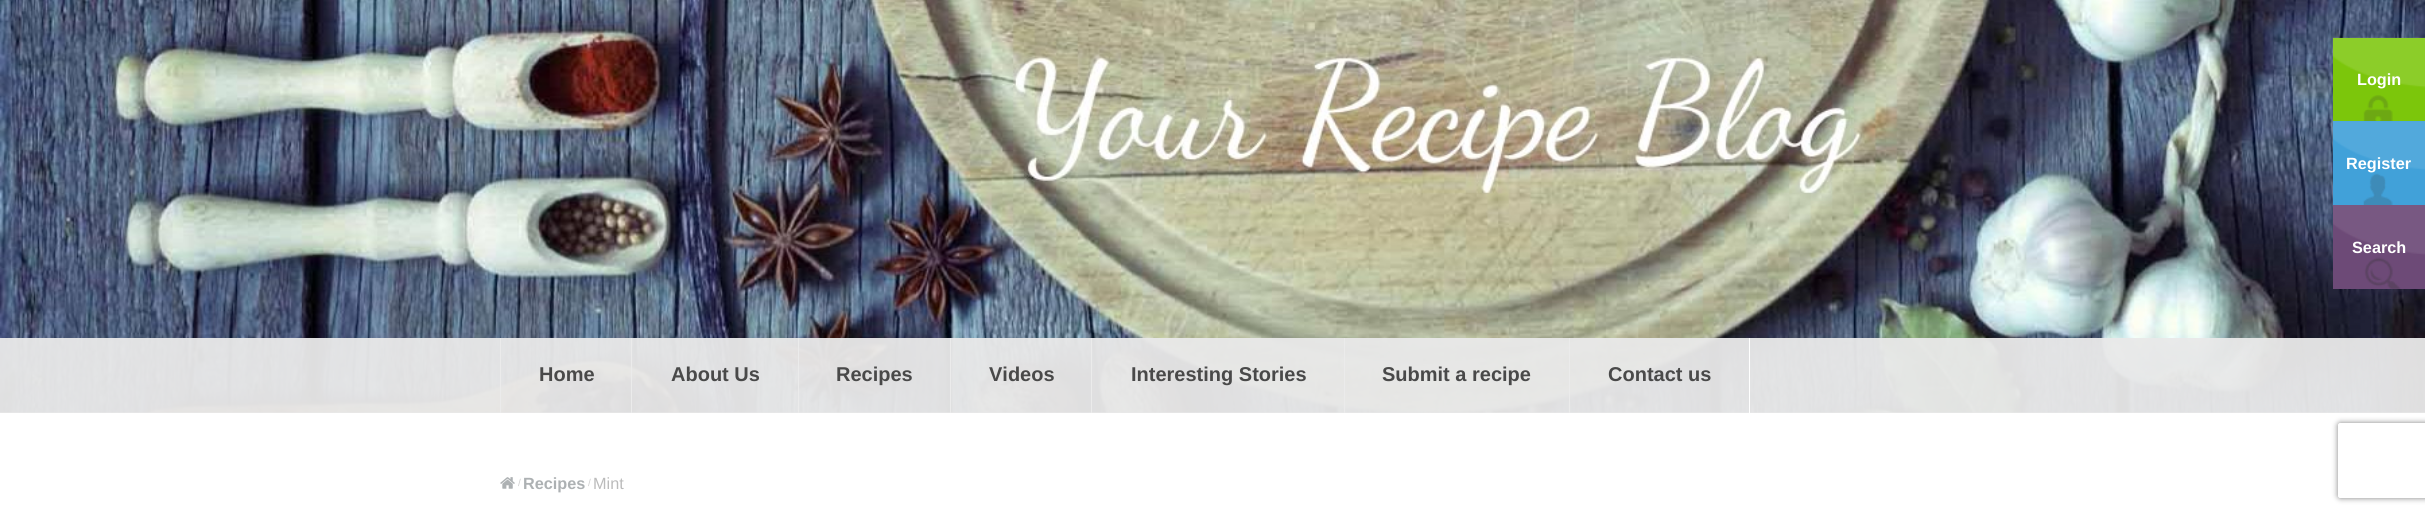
#include <cairo.h>
#include <math.h>
#include <stddef.h>


static void ink(cairo_t *ctx, unsigned color) {
    cairo_set_source_rgb(ctx, (color >> 16) / 255.0, (color >> 8 & 255) / 255.0, (color & 255) / 255.0);
}

static void round_path(cairo_t *ctx, double x, double y, double w, double h, double r) {
    cairo_new_sub_path(ctx);
    cairo_arc(ctx, x + w - r, y + h - r, r, 0, M_PI / 2);
    cairo_arc(ctx, x + r, y + h - r, r, M_PI / 2, M_PI);
    cairo_arc(ctx, x + r, y + r, r, M_PI, 1.5 * M_PI);
    cairo_arc(ctx, x + w - r, y + r, r, 1.5 * M_PI, 2 * M_PI);
    cairo_close_path(ctx);
}

static void blur_box(cairo_t *ctx, double x, double y, double w, double h, double r, double blur, double alpha) {
    cairo_push_group_with_content(ctx, CAIRO_CONTENT_ALPHA);
    cairo_set_operator(ctx, CAIRO_OPERATOR_SOURCE);
    for (int i = 15; i >= -15 && fmin(w, h) + blur * i / 3 > 0; i -= 2) {
        double e = blur * i / 6;
        cairo_set_source_rgba(ctx, 0, 0, 0, alpha * erfc((i - 1) / 8.5) / 2);
        round_path(ctx, x - e, y - e, w + 2 * e, h + 2 * e, fmax(0, fmin(r + e + blur * .6, fmin(w, h) / 2 + e)));
        cairo_fill(ctx);
    }
    cairo_pattern_t *soft = cairo_pop_group(ctx);
    cairo_mask(ctx, soft);
    cairo_pattern_destroy(soft);
}

static void paste(cairo_t *ctx, const char *path, double x, double y, double w, double h) {
    cairo_surface_t *image = cairo_image_surface_create_from_png(path);
    cairo_save(ctx);
    cairo_set_source_surface(ctx, image, x, y);
    cairo_rectangle(ctx, x, y, w, h);
    cairo_fill(ctx);
    cairo_restore(ctx);
    cairo_surface_destroy(image);
}

int main(void) {
    cairo_surface_t *surface = cairo_image_surface_create(CAIRO_FORMAT_RGB24, 2425, 514);
    cairo_t *ctx = cairo_create(surface);
    cairo_font_options_t *options = cairo_font_options_create();
    cairo_font_options_set_hint_metrics(options, CAIRO_HINT_METRICS_OFF);
    cairo_font_options_set_hint_style(options, CAIRO_HINT_STYLE_NONE);
    cairo_set_font_options(ctx, options);
    cairo_set_miter_limit(ctx, 4);
    ink(ctx, 0xFFFFFF);
    cairo_paint(ctx);
    paste(ctx, "media/1.png", 0, 0, 2425, 413);
    ink(ctx, 0x7CC60B);
    cairo_rectangle(ctx, 2333, 38, 92, 83);
    cairo_fill(ctx);
    paste(ctx, "media/2.png", 2332, 37, 93, 84);
    cairo_select_font_face(ctx, "Liberation Sans", CAIRO_FONT_SLANT_NORMAL, CAIRO_FONT_WEIGHT_BOLD);
    cairo_set_font_size(ctx, 16.25);
    ink(ctx, 0xFFFFFF);
    cairo_move_to(ctx, 2357, 85);
    cairo_show_text(ctx, "Login");
    ink(ctx, 0x41A1D9);
    cairo_rectangle(ctx, 2333, 121, 92, 84);
    cairo_fill(ctx);
    paste(ctx, "media/3.png", 2332, 121, 93, 84);
    ink(ctx, 0xFFFFFF);
    cairo_move_to(ctx, 2346, 169);
    cairo_show_text(ctx, "Register");
    ink(ctx, 0x6D4A77);
    cairo_rectangle(ctx, 2333, 205, 92, 84);
    cairo_fill(ctx);
    paste(ctx, "media/4.png", 2332, 205, 93, 84);
    ink(ctx, 0xFFFFFF);
    cairo_move_to(ctx, 2352, 253);
    cairo_show_text(ctx, "Search");
    cairo_set_source_rgba(ctx, 0.914, 0.914, 0.914, 0.95);
    cairo_rectangle(ctx, 0, 338, 2425, 75);
    cairo_fill(ctx);
    ink(ctx, 0xEBEBEB);
    cairo_rectangle(ctx, 500, 338, 1, 75);
    cairo_fill(ctx);
    cairo_set_font_size(ctx, 20);
    ink(ctx, 0x494949);
    cairo_move_to(ctx, 539, 381);
    cairo_show_text(ctx, "Home");
    ink(ctx, 0xEBEBEB);
    cairo_rectangle(ctx, 631, 338, 1, 75);
    cairo_fill(ctx);
    ink(ctx, 0x494949);
    cairo_move_to(ctx, 671, 381);
    cairo_show_text(ctx, "About Us");
    ink(ctx, 0xEBEBEB);
    cairo_rectangle(ctx, 798, 338, 1, 75);
    cairo_fill(ctx);
    ink(ctx, 0x494949);
    cairo_move_to(ctx, 836, 381);
    cairo_show_text(ctx, "Recipes");
    ink(ctx, 0xEBEBEB);
    cairo_rectangle(ctx, 950, 338, 1, 75);
    cairo_fill(ctx);
    ink(ctx, 0x494949);
    cairo_move_to(ctx, 989, 381);
    cairo_show_text(ctx, "Videos");
    ink(ctx, 0xEBEBEB);
    cairo_rectangle(ctx, 1091, 338, 1, 75);
    cairo_fill(ctx);
    ink(ctx, 0x494949);
    cairo_move_to(ctx, 1131, 381);
    cairo_show_text(ctx, "Interesting Stories");
    ink(ctx, 0xEBEBEB);
    cairo_rectangle(ctx, 1344, 338, 1, 75);
    cairo_fill(ctx);
    ink(ctx, 0x494949);
    cairo_move_to(ctx, 1382, 381);
    cairo_show_text(ctx, "Submit a recipe");
    ink(ctx, 0xFFFFFF);
    cairo_rectangle(ctx, 1749, 338, 1, 75);
    cairo_fill(ctx);
    ink(ctx, 0xEBEBEB);
    cairo_rectangle(ctx, 1569, 338, 1, 75);
    cairo_fill(ctx);
    ink(ctx, 0x494949);
    cairo_move_to(ctx, 1608, 381);
    cairo_show_text(ctx, "Contact us");
    paste(ctx, "media/5.png", 500, 477, 15, 12);
    cairo_select_font_face(ctx, "Liberation Sans", CAIRO_FONT_SLANT_NORMAL, CAIRO_FONT_WEIGHT_NORMAL);
    cairo_set_font_size(ctx, 10);
    ink(ctx, 0xCFCFCF);
    cairo_move_to(ctx, 518, 486);
    cairo_show_text(ctx, "/");
    cairo_select_font_face(ctx, "Liberation Sans", CAIRO_FONT_SLANT_NORMAL, CAIRO_FONT_WEIGHT_BOLD);
    cairo_set_font_size(ctx, 16.25);
    ink(ctx, 0xADB1B3);
    cairo_move_to(ctx, 523, 489);
    cairo_show_text(ctx, "Recipes");
    cairo_select_font_face(ctx, "Liberation Sans", CAIRO_FONT_SLANT_NORMAL, CAIRO_FONT_WEIGHT_NORMAL);
    cairo_set_font_size(ctx, 10);
    ink(ctx, 0xCFCFCF);
    cairo_move_to(ctx, 588, 486);
    cairo_show_text(ctx, "/");
    cairo_set_font_size(ctx, 16.25);
    ink(ctx, 0xBBBBBB);
    cairo_move_to(ctx, 593, 489);
    cairo_show_text(ctx, "Mint");
    cairo_save(ctx);
    cairo_set_fill_rule(ctx, CAIRO_FILL_RULE_EVEN_ODD);
    cairo_new_path(ctx);
    cairo_move_to(ctx, 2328, 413);
    cairo_line_to(ctx, 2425, 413);
    cairo_line_to(ctx, 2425, 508);
    cairo_line_to(ctx, 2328, 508);
    cairo_close_path(ctx);
    cairo_move_to(ctx, 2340.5, 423);
    cairo_line_to(ctx, 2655.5, 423);
    cairo_curve_to(ctx, 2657, 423, 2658, 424, 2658, 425.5);
    cairo_line_to(ctx, 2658, 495.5);
    cairo_curve_to(ctx, 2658, 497, 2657, 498, 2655.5, 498);
    cairo_line_to(ctx, 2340.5, 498);
    cairo_curve_to(ctx, 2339, 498, 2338, 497, 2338, 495.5);
    cairo_line_to(ctx, 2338, 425.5);
    cairo_curve_to(ctx, 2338, 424, 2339, 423, 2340.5, 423);
    cairo_close_path(ctx);
    cairo_clip(ctx);
    ink(ctx, 0x808080);
    blur_box(ctx, 2338, 423, 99, 75, 2.5, 3, 1);
    cairo_restore(ctx);
    cairo_surface_write_to_png(surface, "image.png");
    cairo_font_options_destroy(options);
    cairo_destroy(ctx);
    cairo_surface_destroy(surface);
    return 0;
}
